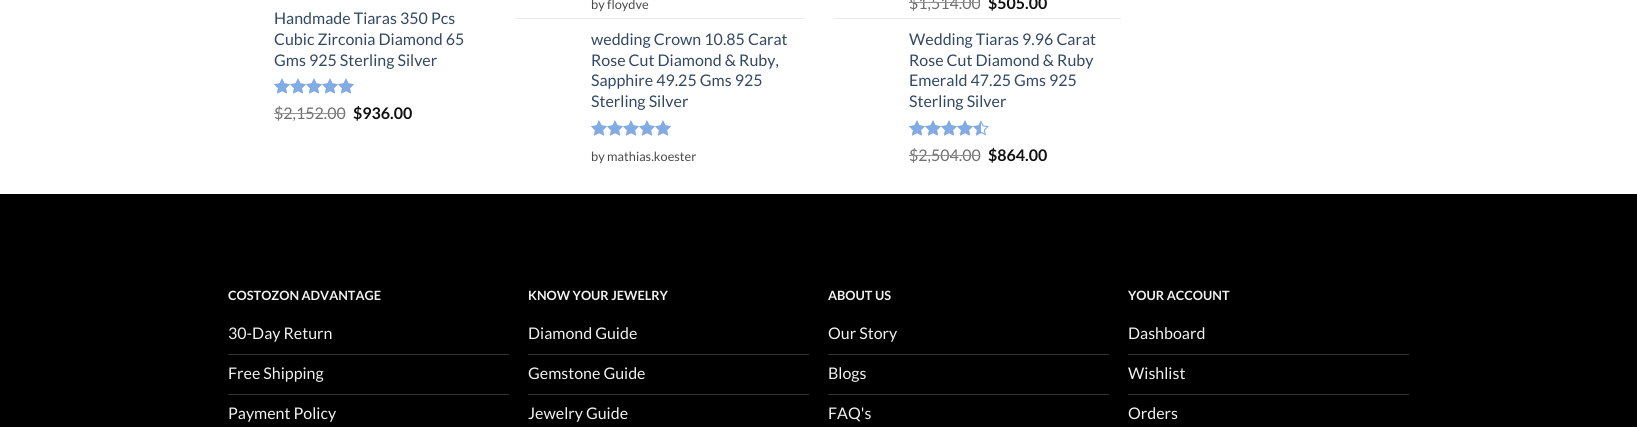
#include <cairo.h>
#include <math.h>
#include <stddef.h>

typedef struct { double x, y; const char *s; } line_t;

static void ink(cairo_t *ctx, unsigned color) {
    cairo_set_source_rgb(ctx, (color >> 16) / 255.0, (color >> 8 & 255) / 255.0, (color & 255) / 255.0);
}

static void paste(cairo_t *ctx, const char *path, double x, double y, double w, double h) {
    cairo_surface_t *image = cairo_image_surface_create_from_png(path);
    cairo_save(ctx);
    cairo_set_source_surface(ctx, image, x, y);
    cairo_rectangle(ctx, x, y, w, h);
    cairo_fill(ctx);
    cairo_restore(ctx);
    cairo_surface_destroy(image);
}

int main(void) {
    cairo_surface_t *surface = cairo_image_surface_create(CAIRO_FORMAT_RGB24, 1637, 427);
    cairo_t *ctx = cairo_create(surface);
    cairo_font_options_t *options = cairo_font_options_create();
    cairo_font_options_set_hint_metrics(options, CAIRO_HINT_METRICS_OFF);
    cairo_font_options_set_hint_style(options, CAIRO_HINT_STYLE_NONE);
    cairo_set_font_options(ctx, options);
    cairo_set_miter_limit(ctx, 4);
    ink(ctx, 0xFFFFFF);
    cairo_paint(ctx);
    cairo_select_font_face(ctx, "Lato", CAIRO_FONT_SLANT_NORMAL, CAIRO_FONT_WEIGHT_NORMAL);
    cairo_set_font_size(ctx, 16);
    ink(ctx, 0x334862);
    {
        static const line_t items[] = {
            {274, 24, "Handmade Tiaras 350 Pcs"},
            {274, 45, "Cubic Zirconia Diamond 65"},
            {274, 66, "Gms 925 Sterling Silver"},
        };
        for (size_t i = 0; i < sizeof items / sizeof *items; i++) {
            cairo_move_to(ctx, items[i].x, items[i].y);
            cairo_show_text(ctx, items[i].s);
        }
    }
    paste(ctx, "media/1.png", 274, 78, 80, 16);
    paste(ctx, "media/2.png", 274, 78, 80, 16);
    ink(ctx, 0x707070);
    cairo_move_to(ctx, 274, 119);
    cairo_show_text(ctx, "$2,152.00");
    ink(ctx, 0x929292);
    cairo_rectangle(ctx, 274, 113, 71, 1);
    cairo_fill(ctx);
    cairo_select_font_face(ctx, "Lato", CAIRO_FONT_SLANT_NORMAL, CAIRO_FONT_WEIGHT_BOLD);
    ink(ctx, 0x111111);
    cairo_move_to(ctx, 353, 119);
    cairo_show_text(ctx, "$936.00");
    cairo_select_font_face(ctx, "Lato", CAIRO_FONT_SLANT_NORMAL, CAIRO_FONT_WEIGHT_NORMAL);
    cairo_set_font_size(ctx, 12.75);
    ink(ctx, 0x4A4A4A);
    cairo_move_to(ctx, 591, 9);
    cairo_show_text(ctx, "by floydve");
    ink(ctx, 0xECECEC);
    cairo_rectangle(ctx, 516, 18, 288, 1);
    cairo_fill(ctx);
    cairo_set_font_size(ctx, 16);
    ink(ctx, 0x334862);
    {
        static const line_t items[] = {
            {591, 45, "wedding Crown 10.85 Carat"},
            {591, 66, "Rose Cut Diamond & Ruby,"},
            {591, 86, "Sapphire 49.25 Gms 925"},
            {591, 107, "Sterling Silver"},
        };
        for (size_t i = 0; i < sizeof items / sizeof *items; i++) {
            cairo_move_to(ctx, items[i].x, items[i].y);
            cairo_show_text(ctx, items[i].s);
        }
    }
    paste(ctx, "media/1.png", 591, 120, 80, 16);
    paste(ctx, "media/2.png", 591, 120, 80, 16);
    cairo_set_font_size(ctx, 12.75);
    ink(ctx, 0x4A4A4A);
    cairo_move_to(ctx, 591, 161);
    cairo_show_text(ctx, "by mathias.koester");
    cairo_set_font_size(ctx, 16);
    ink(ctx, 0x707070);
    cairo_move_to(ctx, 909, 9);
    cairo_show_text(ctx, "$1,514.00");
    ink(ctx, 0x929292);
    cairo_rectangle(ctx, 909, 2, 71, 1);
    cairo_fill(ctx);
    cairo_select_font_face(ctx, "Lato", CAIRO_FONT_SLANT_NORMAL, CAIRO_FONT_WEIGHT_BOLD);
    ink(ctx, 0x111111);
    cairo_move_to(ctx, 988, 9);
    cairo_show_text(ctx, "$505.00");
    ink(ctx, 0xECECEC);
    cairo_rectangle(ctx, 834, 18, 287, 1);
    cairo_fill(ctx);
    cairo_select_font_face(ctx, "Lato", CAIRO_FONT_SLANT_NORMAL, CAIRO_FONT_WEIGHT_NORMAL);
    ink(ctx, 0x334862);
    {
        static const line_t items[] = {
            {909, 45, "Wedding Tiaras 9.96 Carat"},
            {909, 66, "Rose Cut Diamond & Ruby"},
            {909, 86, "Emerald 47.25 Gms 925"},
            {909, 107, "Sterling Silver"},
        };
        for (size_t i = 0; i < sizeof items / sizeof *items; i++) {
            cairo_move_to(ctx, items[i].x, items[i].y);
            cairo_show_text(ctx, items[i].s);
        }
    }
    paste(ctx, "media/1.png", 909, 120, 80, 16);
    paste(ctx, "media/3.png", 909, 120, 72, 16);
    ink(ctx, 0x707070);
    cairo_move_to(ctx, 909, 161);
    cairo_show_text(ctx, "$2,504.00");
    ink(ctx, 0x929292);
    cairo_rectangle(ctx, 909, 155, 71, 1);
    cairo_fill(ctx);
    cairo_select_font_face(ctx, "Lato", CAIRO_FONT_SLANT_NORMAL, CAIRO_FONT_WEIGHT_BOLD);
    ink(ctx, 0x111111);
    cairo_move_to(ctx, 988, 161);
    cairo_show_text(ctx, "$864.00");
    ink(ctx, 0x000000);
    cairo_rectangle(ctx, 0, 194, 1637, 233);
    cairo_fill(ctx);
    cairo_set_font_size(ctx, 12.75);
    ink(ctx, 0xF1F1F1);
    cairo_move_to(ctx, 228, 300);
    cairo_show_text(ctx, "COSTOZON ADVANTAGE");
    ink(ctx, 0x333333);
    cairo_rectangle(ctx, 228, 354, 281, 1);
    cairo_fill(ctx);
    cairo_select_font_face(ctx, "Lato", CAIRO_FONT_SLANT_NORMAL, CAIRO_FONT_WEIGHT_NORMAL);
    cairo_set_font_size(ctx, 16);
    ink(ctx, 0xF1F1F1);
    cairo_move_to(ctx, 228, 339);
    cairo_show_text(ctx, "30-Day Return");
    ink(ctx, 0x333333);
    cairo_rectangle(ctx, 228, 394, 281, 1);
    cairo_fill(ctx);
    ink(ctx, 0xF1F1F1);
    cairo_move_to(ctx, 228, 379);
    cairo_show_text(ctx, "Free Shipping");
    cairo_move_to(ctx, 228, 419);
    cairo_show_text(ctx, "Payment Policy");
    cairo_select_font_face(ctx, "Lato", CAIRO_FONT_SLANT_NORMAL, CAIRO_FONT_WEIGHT_BOLD);
    cairo_set_font_size(ctx, 12.75);
    cairo_move_to(ctx, 528, 300);
    cairo_show_text(ctx, "KNOW YOUR JEWELRY");
    ink(ctx, 0x333333);
    cairo_rectangle(ctx, 528, 354, 281, 1);
    cairo_fill(ctx);
    cairo_select_font_face(ctx, "Lato", CAIRO_FONT_SLANT_NORMAL, CAIRO_FONT_WEIGHT_NORMAL);
    cairo_set_font_size(ctx, 16);
    ink(ctx, 0xF1F1F1);
    cairo_move_to(ctx, 528, 339);
    cairo_show_text(ctx, "Diamond Guide");
    ink(ctx, 0x333333);
    cairo_rectangle(ctx, 528, 394, 281, 1);
    cairo_fill(ctx);
    ink(ctx, 0xF1F1F1);
    cairo_move_to(ctx, 528, 379);
    cairo_show_text(ctx, "Gemstone Guide");
    cairo_move_to(ctx, 528, 419);
    cairo_show_text(ctx, "Jewelry Guide");
    cairo_select_font_face(ctx, "Lato", CAIRO_FONT_SLANT_NORMAL, CAIRO_FONT_WEIGHT_BOLD);
    cairo_set_font_size(ctx, 12.75);
    cairo_move_to(ctx, 828, 300);
    cairo_show_text(ctx, "ABOUT US");
    ink(ctx, 0x333333);
    cairo_rectangle(ctx, 828, 354, 281, 1);
    cairo_fill(ctx);
    cairo_select_font_face(ctx, "Lato", CAIRO_FONT_SLANT_NORMAL, CAIRO_FONT_WEIGHT_NORMAL);
    cairo_set_font_size(ctx, 16);
    ink(ctx, 0xF1F1F1);
    cairo_move_to(ctx, 828, 339);
    cairo_show_text(ctx, "Our Story");
    ink(ctx, 0x333333);
    cairo_rectangle(ctx, 828, 394, 281, 1);
    cairo_fill(ctx);
    ink(ctx, 0xF1F1F1);
    cairo_move_to(ctx, 828, 379);
    cairo_show_text(ctx, "Blogs");
    cairo_move_to(ctx, 828, 419);
    cairo_show_text(ctx, "FAQ's");
    cairo_select_font_face(ctx, "Lato", CAIRO_FONT_SLANT_NORMAL, CAIRO_FONT_WEIGHT_BOLD);
    cairo_set_font_size(ctx, 12.75);
    cairo_move_to(ctx, 1128, 300);
    cairo_show_text(ctx, "YOUR ACCOUNT");
    ink(ctx, 0x333333);
    cairo_rectangle(ctx, 1128, 354, 281, 1);
    cairo_fill(ctx);
    cairo_select_font_face(ctx, "Lato", CAIRO_FONT_SLANT_NORMAL, CAIRO_FONT_WEIGHT_NORMAL);
    cairo_set_font_size(ctx, 16);
    ink(ctx, 0xF1F1F1);
    cairo_move_to(ctx, 1128, 339);
    cairo_show_text(ctx, "Dashboard");
    ink(ctx, 0x333333);
    cairo_rectangle(ctx, 1128, 394, 281, 1);
    cairo_fill(ctx);
    ink(ctx, 0xF1F1F1);
    cairo_move_to(ctx, 1128, 379);
    cairo_show_text(ctx, "Wishlist");
    cairo_move_to(ctx, 1128, 419);
    cairo_show_text(ctx, "Orders");
    cairo_surface_write_to_png(surface, "image.png");
    cairo_font_options_destroy(options);
    cairo_destroy(ctx);
    cairo_surface_destroy(surface);
    return 0;
}
